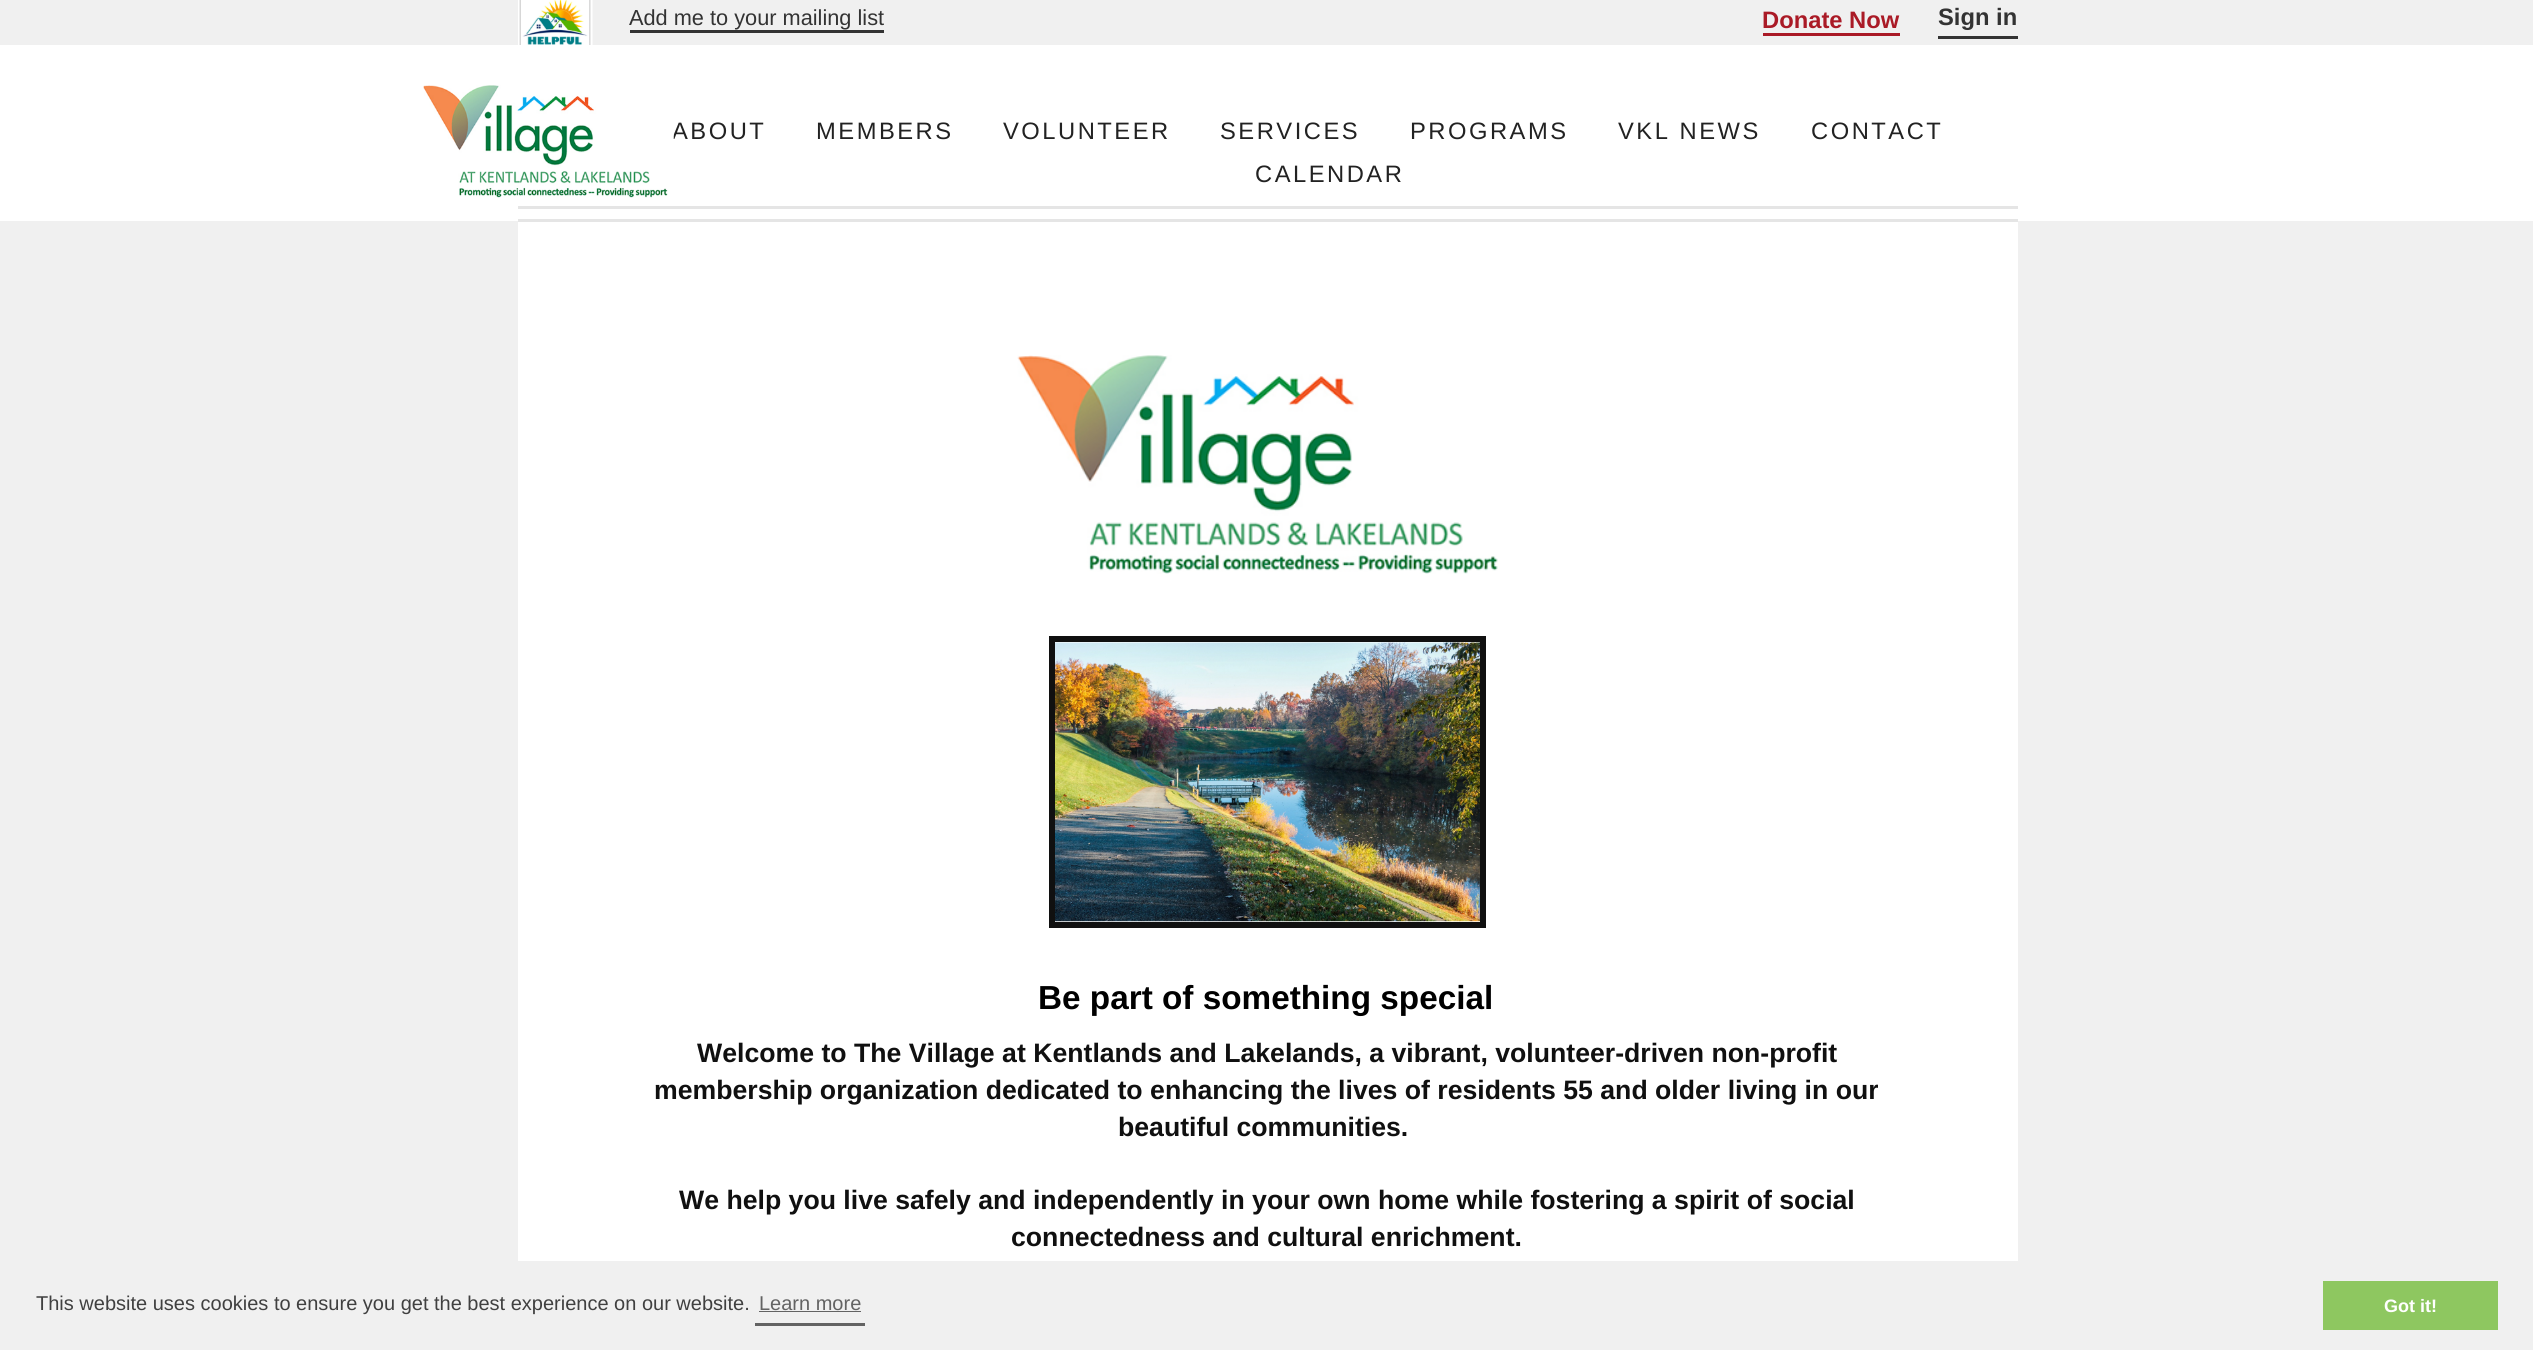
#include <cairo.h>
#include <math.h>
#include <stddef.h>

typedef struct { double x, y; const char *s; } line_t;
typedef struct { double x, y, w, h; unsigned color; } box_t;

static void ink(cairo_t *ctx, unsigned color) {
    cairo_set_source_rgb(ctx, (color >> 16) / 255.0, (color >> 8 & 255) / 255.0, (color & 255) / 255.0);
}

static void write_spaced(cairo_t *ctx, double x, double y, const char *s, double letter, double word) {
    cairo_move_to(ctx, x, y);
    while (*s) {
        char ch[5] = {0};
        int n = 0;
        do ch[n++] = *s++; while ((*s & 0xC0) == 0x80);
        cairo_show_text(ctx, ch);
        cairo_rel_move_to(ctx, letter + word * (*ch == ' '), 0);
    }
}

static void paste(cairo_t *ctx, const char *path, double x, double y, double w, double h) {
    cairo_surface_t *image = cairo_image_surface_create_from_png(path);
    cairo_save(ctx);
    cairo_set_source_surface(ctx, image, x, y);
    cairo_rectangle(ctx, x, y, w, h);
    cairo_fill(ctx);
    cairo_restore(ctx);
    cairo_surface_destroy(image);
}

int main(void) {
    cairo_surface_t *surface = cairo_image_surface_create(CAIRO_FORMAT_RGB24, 2533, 1350);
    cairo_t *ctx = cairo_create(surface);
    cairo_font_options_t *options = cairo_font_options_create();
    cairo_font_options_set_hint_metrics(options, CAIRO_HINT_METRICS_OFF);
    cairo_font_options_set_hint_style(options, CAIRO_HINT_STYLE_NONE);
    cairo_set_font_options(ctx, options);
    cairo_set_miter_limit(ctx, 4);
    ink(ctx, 0xF0F0F0);
    cairo_paint(ctx);
    paste(ctx, "media/1.png", 518, 0, 75, 45);
    cairo_select_font_face(ctx, "Liberation Sans", CAIRO_FONT_SLANT_NORMAL, CAIRO_FONT_WEIGHT_NORMAL);
    cairo_set_font_size(ctx, 21.75);
    ink(ctx, 0x333333);
    cairo_move_to(ctx, 629, 25);
    cairo_show_text(ctx, "Add me to your mailing list");
    cairo_rectangle(ctx, 630, 30, 254, 3);
    cairo_fill(ctx);
    cairo_select_font_face(ctx, "Liberation Sans", CAIRO_FONT_SLANT_NORMAL, CAIRO_FONT_WEIGHT_BOLD);
    cairo_set_font_size(ctx, 23.75);
    ink(ctx, 0xAA1A26);
    cairo_move_to(ctx, 1762, 28);
    cairo_show_text(ctx, "Donate Now");
    cairo_rectangle(ctx, 1763, 33, 137, 3);
    cairo_fill(ctx);
    ink(ctx, 0x333333);
    cairo_rectangle(ctx, 1938, 36, 80, 3);
    cairo_fill(ctx);
    cairo_move_to(ctx, 1938, 25);
    cairo_show_text(ctx, "Sign in");
    {
        static const box_t items[] = {
            {0, 45, 2533, 176, 0xFFFFFF},
            {518, 206, 1500, 3, 0xE5E5E5},
            {518, 219, 1500, 3, 0xE5E5E5},
        };
        for (size_t i = 0; i < sizeof items / sizeof *items; i++) {
            ink(ctx, items[i].color);
            cairo_rectangle(ctx, items[i].x, items[i].y, items[i].w, items[i].h);
            cairo_fill(ctx);
        }
    }
    cairo_select_font_face(ctx, "Liberation Sans", CAIRO_FONT_SLANT_NORMAL, CAIRO_FONT_WEIGHT_NORMAL);
    ink(ctx, 0x222222);
    write_spaced(ctx, 672, 139, "ABOUT", 2.5, 0);
    paste(ctx, "media/2.png", 423, 85, 251, 113);
    {
        static const line_t items[] = {
            {816, 139, "MEMBERS"},
            {1003, 139, "VOLUNTEER"},
            {1220, 139, "SERVICES"},
            {1410, 139, "PROGRAMS"},
            {1618, 139, "VKL NEWS"},
            {1811, 139, "CONTACT"},
            {1255, 182, "CALENDAR"},
        };
        for (size_t i = 0; i < sizeof items / sizeof *items; i++) {
            write_spaced(ctx, items[i].x, items[i].y, items[i].s, 2.5, 0);
        }
    }
    ink(ctx, 0xFFFFFF);
    cairo_rectangle(ctx, 518, 222, 1500, 1039);
    cairo_fill(ctx);
    paste(ctx, "media/3.png", 1017, 355, 481, 219);
    cairo_rectangle(ctx, 1052, 639, 431, 286);
    ink(ctx, 0x101010);
    cairo_set_line_width(ctx, 6);
    cairo_stroke(ctx);
    paste(ctx, "media/4.png", 1055, 642, 425, 280);
    cairo_select_font_face(ctx, "Liberation Sans", CAIRO_FONT_SLANT_NORMAL, CAIRO_FONT_WEIGHT_BOLD);
    cairo_set_font_size(ctx, 33.3);
    ink(ctx, 0x000000);
    cairo_move_to(ctx, 1038, 1009);
    cairo_show_text(ctx, "Be part of something special");
    cairo_set_font_size(ctx, 26.65);
    ink(ctx, 0x101010);
    {
        static const line_t items[] = {
            {697, 1062, "Welcome to The Village at Kentlands and Lakelands, a vibrant, volunteer-driven non-profit"},
            {654, 1099, "membership organization dedicated to enhancing the lives of residents 55 and older living in our"},
            {1118, 1136, "beautiful communities."},
            {679, 1209, "We help you live safely and independently in your own home while fostering a spirit of social"},
            {1011, 1246, "connectedness and cultural enrichment."},
        };
        for (size_t i = 0; i < sizeof items / sizeof *items; i++) {
            cairo_move_to(ctx, items[i].x, items[i].y);
            cairo_show_text(ctx, items[i].s);
        }
    }
    cairo_select_font_face(ctx, "Liberation Sans", CAIRO_FONT_SLANT_NORMAL, CAIRO_FONT_WEIGHT_NORMAL);
    cairo_set_font_size(ctx, 20);
    ink(ctx, 0x404040);
    cairo_move_to(ctx, 36, 1310);
    cairo_show_text(ctx, "This website uses cookies to ensure you get the best experience on our website.");
    ink(ctx, 0x636363);
    cairo_rectangle(ctx, 755, 1323, 110, 3);
    cairo_fill(ctx);
    cairo_move_to(ctx, 759, 1310);
    cairo_show_text(ctx, "Learn more");
    cairo_rectangle(ctx, 759, 1311, 102, 1);
    cairo_fill(ctx);
    ink(ctx, 0x8EC760);
    cairo_rectangle(ctx, 2323, 1281, 175, 49);
    cairo_fill(ctx);
    cairo_select_font_face(ctx, "Liberation Sans", CAIRO_FONT_SLANT_NORMAL, CAIRO_FONT_WEIGHT_BOLD);
    cairo_set_font_size(ctx, 18);
    ink(ctx, 0xFFFFFF);
    cairo_move_to(ctx, 2384, 1312);
    cairo_show_text(ctx, "Got it!");
    cairo_surface_write_to_png(surface, "image.png");
    cairo_font_options_destroy(options);
    cairo_destroy(ctx);
    cairo_surface_destroy(surface);
    return 0;
}
